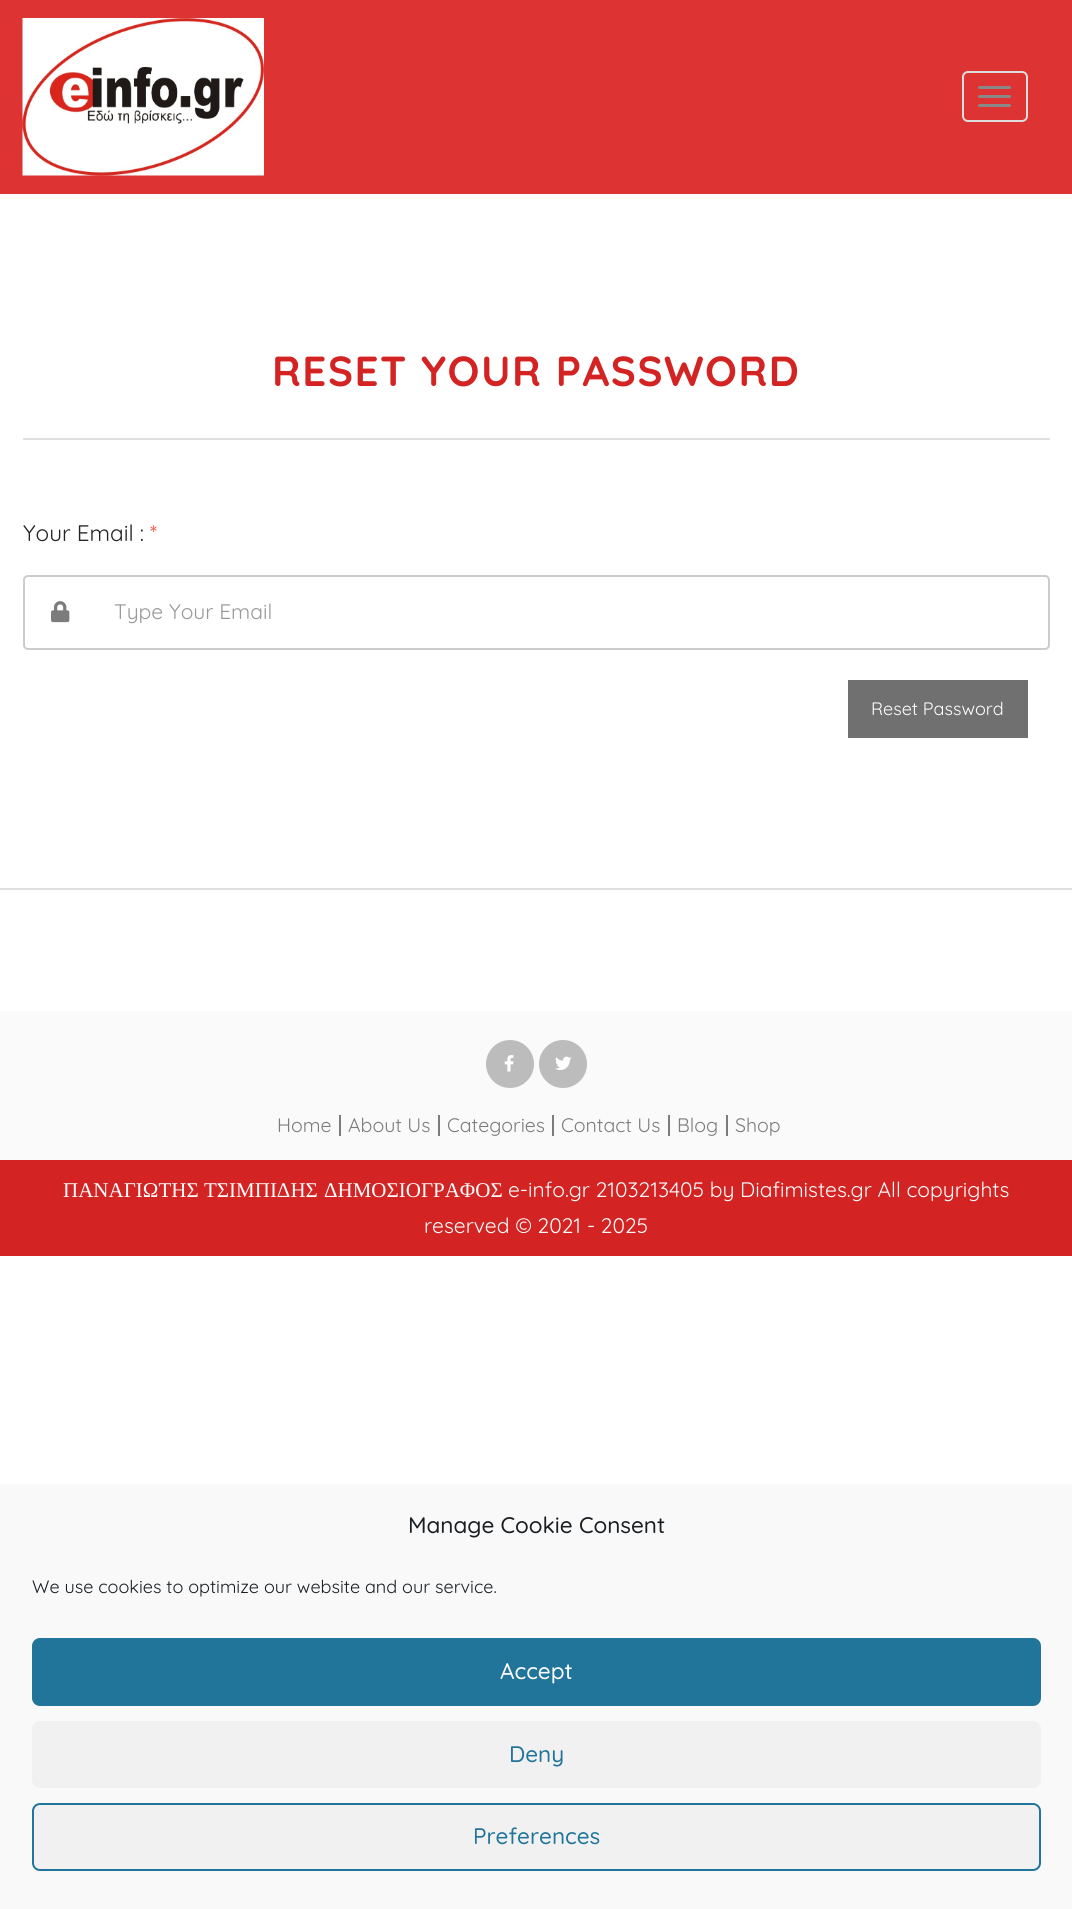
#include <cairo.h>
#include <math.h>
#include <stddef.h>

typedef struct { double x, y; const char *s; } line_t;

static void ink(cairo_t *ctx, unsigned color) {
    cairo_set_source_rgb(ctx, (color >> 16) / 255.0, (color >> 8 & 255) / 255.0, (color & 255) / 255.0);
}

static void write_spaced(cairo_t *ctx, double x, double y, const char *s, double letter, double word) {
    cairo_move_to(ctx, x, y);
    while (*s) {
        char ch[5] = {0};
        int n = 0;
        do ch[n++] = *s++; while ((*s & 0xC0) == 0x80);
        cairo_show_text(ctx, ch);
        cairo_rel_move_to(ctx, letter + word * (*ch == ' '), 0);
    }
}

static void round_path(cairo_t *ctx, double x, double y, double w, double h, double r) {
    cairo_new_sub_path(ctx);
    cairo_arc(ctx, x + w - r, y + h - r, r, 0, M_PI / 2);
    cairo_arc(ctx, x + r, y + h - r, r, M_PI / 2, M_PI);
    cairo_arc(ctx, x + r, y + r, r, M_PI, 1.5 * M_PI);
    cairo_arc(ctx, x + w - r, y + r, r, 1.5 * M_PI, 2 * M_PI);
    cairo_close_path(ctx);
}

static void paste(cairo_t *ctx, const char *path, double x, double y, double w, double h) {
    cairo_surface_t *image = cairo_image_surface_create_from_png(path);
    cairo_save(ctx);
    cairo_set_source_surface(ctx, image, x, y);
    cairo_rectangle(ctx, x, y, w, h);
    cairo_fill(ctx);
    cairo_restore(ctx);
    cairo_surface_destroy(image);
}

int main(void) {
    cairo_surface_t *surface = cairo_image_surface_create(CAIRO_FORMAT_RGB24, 1072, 1909);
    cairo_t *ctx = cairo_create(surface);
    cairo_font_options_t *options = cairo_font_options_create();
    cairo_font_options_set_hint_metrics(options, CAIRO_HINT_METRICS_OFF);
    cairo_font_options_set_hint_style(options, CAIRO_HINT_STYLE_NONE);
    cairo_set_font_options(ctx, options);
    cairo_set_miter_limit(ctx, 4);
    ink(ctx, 0xFFFFFF);
    cairo_paint(ctx);
    ink(ctx, 0xDD3333);
    cairo_rectangle(ctx, 0, 0, 1072, 194);
    cairo_fill(ctx);
    paste(ctx, "media/1.png", 22, 18, 242, 158);
    round_path(ctx, 963, 72, 64, 49, 5);
    ink(ctx, 0xDDDDDD);
    cairo_stroke(ctx);
    ink(ctx, 0x888888);
    round_path(ctx, 978, 86, 33, 3, 1.5);
    cairo_fill(ctx);
    round_path(ctx, 978, 95, 33, 3, 1.5);
    cairo_fill(ctx);
    round_path(ctx, 978, 104, 33, 3, 1.5);
    cairo_fill(ctx);
    ink(ctx, 0xE0E0E0);
    cairo_rectangle(ctx, 0, 888, 1072, 2);
    cairo_fill(ctx);
    cairo_rectangle(ctx, 23, 438, 1027, 2);
    cairo_fill(ctx);
    cairo_select_font_face(ctx, "Quicksand", CAIRO_FONT_SLANT_NORMAL, CAIRO_FONT_WEIGHT_BOLD);
    cairo_set_font_size(ctx, 42);
    ink(ctx, 0xD32323);
    write_spaced(ctx, 272, 386, "RESET YOUR PASSWORD", 1.5, 0);
    cairo_select_font_face(ctx, "Quicksand", CAIRO_FONT_SLANT_NORMAL, CAIRO_FONT_WEIGHT_NORMAL);
    cairo_set_font_size(ctx, 22.5);
    ink(ctx, 0x232323);
    cairo_move_to(ctx, 23, 541);
    cairo_show_text(ctx, "Your Email :");
    ink(ctx, 0xFA4E40);
    cairo_move_to(ctx, 150, 541);
    cairo_show_text(ctx, "*");
    round_path(ctx, 24, 576, 1025, 73, 4);
    ink(ctx, 0xCCCCCC);
    cairo_stroke(ctx);
    paste(ctx, "media/2.png", 51, 601, 19, 22);
    cairo_set_font_size(ctx, 21);
    ink(ctx, 0x999999);
    cairo_move_to(ctx, 114, 619);
    cairo_show_text(ctx, "Type Your Email");
    ink(ctx, 0x707070);
    cairo_rectangle(ctx, 848, 680, 180, 58);
    cairo_fill(ctx);
    cairo_set_font_size(ctx, 18);
    ink(ctx, 0xFFFFFF);
    cairo_move_to(ctx, 871, 715);
    cairo_show_text(ctx, "Reset Password");
    ink(ctx, 0xFAFAFA);
    cairo_rectangle(ctx, 0, 1011, 1072, 149);
    cairo_fill(ctx);
    ink(ctx, 0xBCBCBC);
    cairo_arc(ctx, 510, 1064, 24, 0, 2 * M_PI);
    cairo_fill(ctx);
    paste(ctx, "media/3.png", 504, 1055, 10, 17);
    cairo_arc(ctx, 563, 1064, 24, 0, 2 * M_PI);
    cairo_fill(ctx);
    paste(ctx, "media/4.png", 555, 1056, 17, 14);
    ink(ctx, 0x7C7C7C);
    cairo_rectangle(ctx, 339, 1115, 2, 21);
    cairo_fill(ctx);
    cairo_set_font_size(ctx, 19.5);
    cairo_move_to(ctx, 277, 1132);
    cairo_show_text(ctx, "Home");
    cairo_rectangle(ctx, 438, 1115, 2, 21);
    cairo_fill(ctx);
    cairo_move_to(ctx, 348, 1132);
    cairo_show_text(ctx, "About Us");
    cairo_rectangle(ctx, 552, 1115, 2, 21);
    cairo_fill(ctx);
    cairo_move_to(ctx, 447, 1132);
    cairo_show_text(ctx, "Categories");
    cairo_rectangle(ctx, 668, 1115, 2, 21);
    cairo_fill(ctx);
    cairo_move_to(ctx, 561, 1132);
    cairo_show_text(ctx, "Contact Us");
    cairo_rectangle(ctx, 726, 1115, 2, 21);
    cairo_fill(ctx);
    cairo_move_to(ctx, 677, 1132);
    cairo_show_text(ctx, "Blog");
    cairo_move_to(ctx, 735, 1132);
    cairo_show_text(ctx, "Shop");
    ink(ctx, 0xD32323);
    cairo_rectangle(ctx, 0, 1160, 1072, 96);
    cairo_fill(ctx);
    cairo_select_font_face(ctx, "Liberation Serif", CAIRO_FONT_SLANT_NORMAL, CAIRO_FONT_WEIGHT_NORMAL);
    cairo_set_font_size(ctx, 21);
    ink(ctx, 0xFFFFFF);
    {
        static const line_t items[] = {
            {63, 1197, "ΠΑΝΑΓΙΩΤΗΣ"},
            {204, 1197, "ΤΣΙΜΠΙΔΗΣ"},
            {324, 1197, "ΔΗΜΟΣΙΟΓΡΑΦΟΣ"},
        };
        for (size_t i = 0; i < sizeof items / sizeof *items; i++) {
            cairo_move_to(ctx, items[i].x, items[i].y);
            cairo_show_text(ctx, items[i].s);
        }
    }
    cairo_select_font_face(ctx, "Quicksand", CAIRO_FONT_SLANT_NORMAL, CAIRO_FONT_WEIGHT_NORMAL);
    cairo_move_to(ctx, 508, 1197);
    cairo_show_text(ctx, "e-info.gr 2103213405 by Diafimistes.gr All copyrights");
    cairo_move_to(ctx, 424, 1233);
    cairo_show_text(ctx, "reserved © 2021 - 2025");
    ink(ctx, 0xF9F9F9);
    cairo_rectangle(ctx, 0, 1484, 1072, 425);
    cairo_fill(ctx);
    cairo_select_font_face(ctx, "Quicksand Medium", CAIRO_FONT_SLANT_NORMAL, CAIRO_FONT_WEIGHT_NORMAL);
    cairo_set_font_size(ctx, 22.5);
    ink(ctx, 0x191E23);
    cairo_move_to(ctx, 408, 1533);
    cairo_show_text(ctx, "Manage Cookie Consent");
    cairo_select_font_face(ctx, "Quicksand", CAIRO_FONT_SLANT_NORMAL, CAIRO_FONT_WEIGHT_NORMAL);
    cairo_set_font_size(ctx, 18);
    cairo_move_to(ctx, 32, 1593);
    cairo_show_text(ctx, "We use cookies to optimize our website and our service.");
    ink(ctx, 0x21759B);
    round_path(ctx, 33, 1639, 1007, 66, 7);
    cairo_fill_preserve(ctx);
    cairo_stroke(ctx);
    cairo_select_font_face(ctx, "Quicksand Medium", CAIRO_FONT_SLANT_NORMAL, CAIRO_FONT_WEIGHT_NORMAL);
    cairo_set_font_size(ctx, 22.5);
    ink(ctx, 0xFFFFFF);
    cairo_move_to(ctx, 500, 1679);
    cairo_show_text(ctx, "Accept");
    ink(ctx, 0xF1F1F1);
    round_path(ctx, 32, 1721, 1009, 67, 8);
    cairo_fill(ctx);
    ink(ctx, 0x21759B);
    cairo_move_to(ctx, 509, 1762);
    cairo_show_text(ctx, "Deny");
    ink(ctx, 0xF1F1F1);
    round_path(ctx, 33, 1804, 1007, 66, 7);
    cairo_fill_preserve(ctx);
    ink(ctx, 0x21759B);
    cairo_stroke(ctx);
    cairo_move_to(ctx, 473, 1844);
    cairo_show_text(ctx, "Preferences");
    cairo_surface_write_to_png(surface, "image.png");
    cairo_font_options_destroy(options);
    cairo_destroy(ctx);
    cairo_surface_destroy(surface);
    return 0;
}
